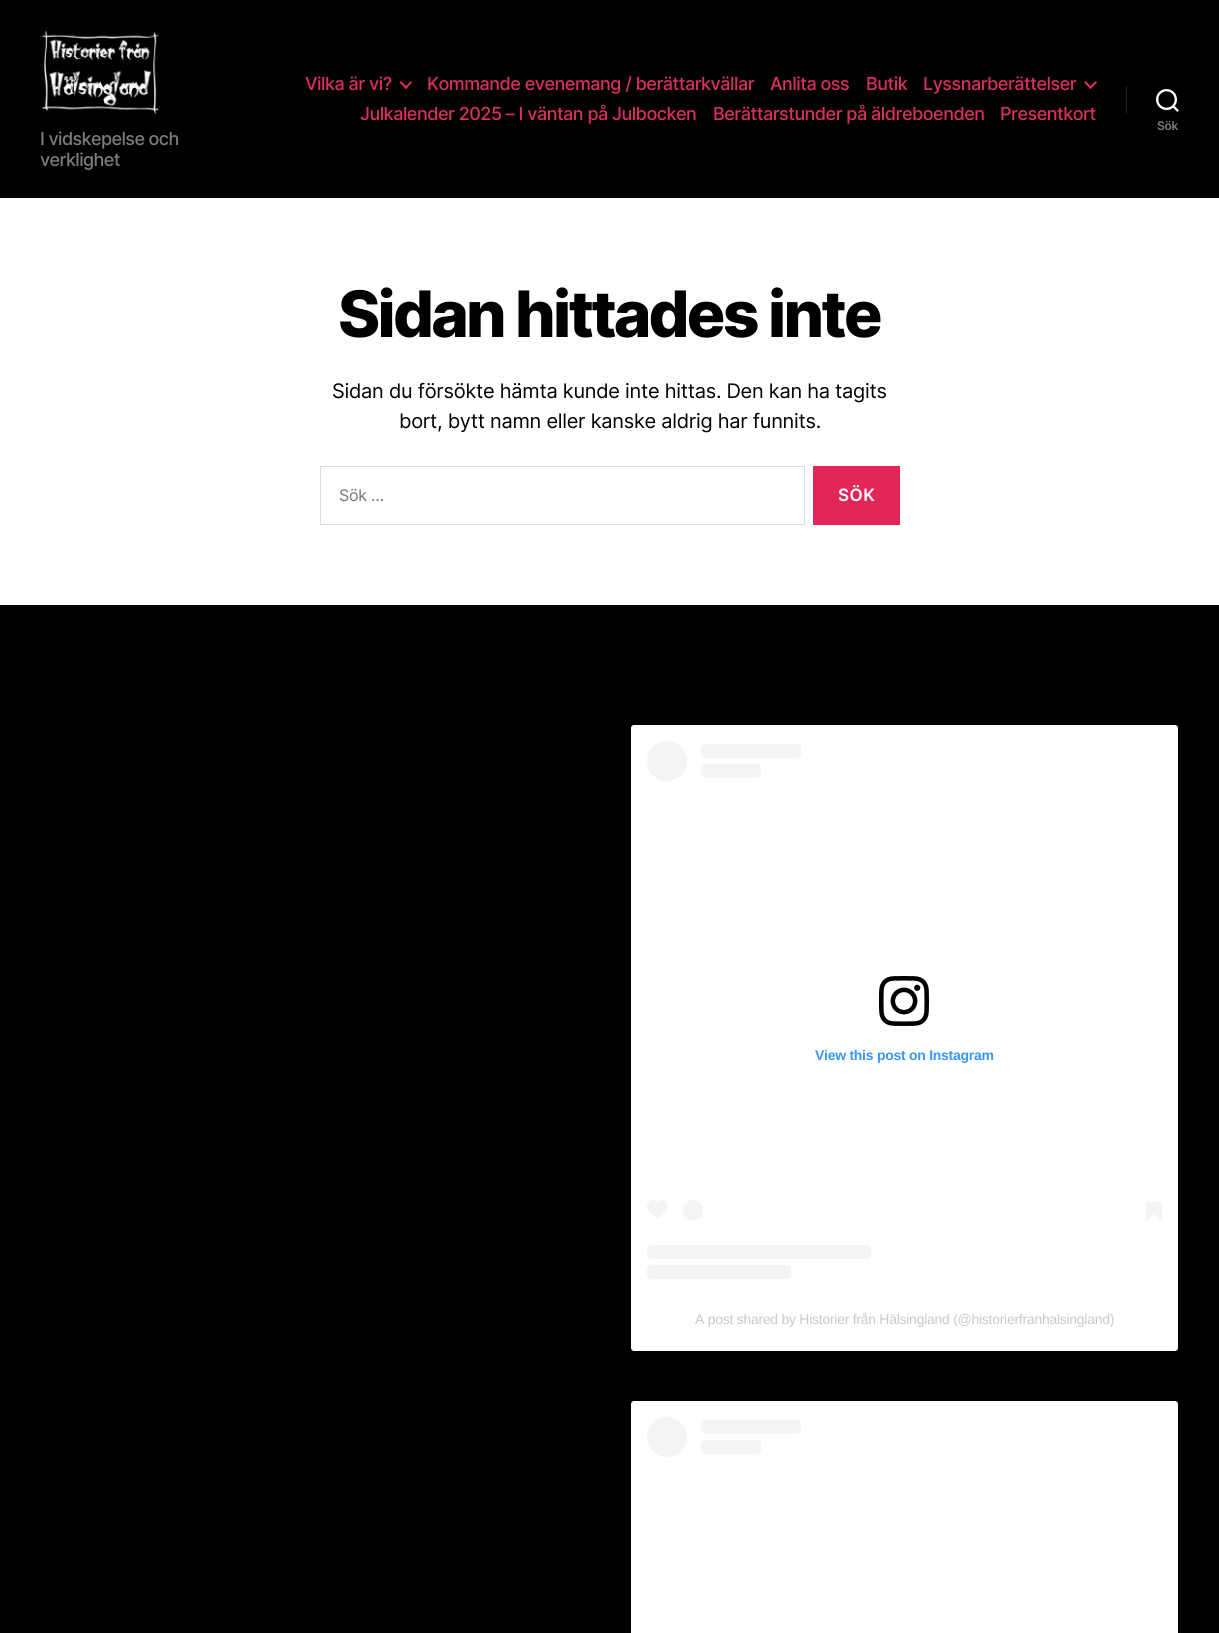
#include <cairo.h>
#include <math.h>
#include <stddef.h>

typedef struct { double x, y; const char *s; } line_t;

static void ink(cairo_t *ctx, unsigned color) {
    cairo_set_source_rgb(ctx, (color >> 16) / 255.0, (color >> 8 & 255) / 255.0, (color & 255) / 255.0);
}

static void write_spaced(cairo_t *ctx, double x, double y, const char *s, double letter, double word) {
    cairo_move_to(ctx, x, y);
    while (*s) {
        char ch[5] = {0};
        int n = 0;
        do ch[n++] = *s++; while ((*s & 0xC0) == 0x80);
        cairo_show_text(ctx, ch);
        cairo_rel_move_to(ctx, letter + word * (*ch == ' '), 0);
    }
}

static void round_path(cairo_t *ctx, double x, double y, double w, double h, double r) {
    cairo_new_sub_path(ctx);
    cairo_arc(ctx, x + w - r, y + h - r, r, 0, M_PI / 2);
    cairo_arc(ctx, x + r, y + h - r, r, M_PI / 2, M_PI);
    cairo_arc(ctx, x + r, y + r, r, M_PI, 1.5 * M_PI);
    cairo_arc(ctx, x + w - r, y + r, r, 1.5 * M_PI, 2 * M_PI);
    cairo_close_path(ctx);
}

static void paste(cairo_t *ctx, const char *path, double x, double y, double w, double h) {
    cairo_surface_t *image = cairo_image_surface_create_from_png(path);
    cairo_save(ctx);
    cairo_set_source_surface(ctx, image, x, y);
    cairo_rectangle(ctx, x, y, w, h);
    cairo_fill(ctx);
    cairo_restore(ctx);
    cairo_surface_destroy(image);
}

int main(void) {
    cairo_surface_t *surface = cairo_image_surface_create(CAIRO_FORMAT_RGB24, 1219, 1633);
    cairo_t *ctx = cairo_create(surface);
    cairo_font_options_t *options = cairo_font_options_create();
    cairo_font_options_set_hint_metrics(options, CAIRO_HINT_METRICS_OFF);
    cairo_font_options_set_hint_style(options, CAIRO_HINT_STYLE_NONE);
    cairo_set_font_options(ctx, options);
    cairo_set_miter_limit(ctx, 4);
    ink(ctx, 0xFFFFFF);
    cairo_paint(ctx);
    ink(ctx, 0x000000);
    cairo_rectangle(ctx, 0, 0, 1219, 198);
    cairo_fill(ctx);
    cairo_select_font_face(ctx, "Inter Medium", CAIRO_FONT_SLANT_NORMAL, CAIRO_FONT_WEIGHT_NORMAL);
    cairo_set_font_size(ctx, 18);
    ink(ctx, 0xD9305D);
    write_spaced(ctx, 305, 90, "Vilka är vi?", -0.5, 0);
    cairo_new_path(ctx);
    cairo_move_to(ctx, 399.5, 82.5);
    cairo_line_to(ctx, 401, 81);
    cairo_line_to(ctx, 407.5, 87.5);
    cairo_line_to(ctx, 406, 89);
    cairo_close_path(ctx);
    cairo_fill(ctx);
    cairo_new_path(ctx);
    cairo_move_to(ctx, 404.5, 87.5);
    cairo_line_to(ctx, 411, 81);
    cairo_line_to(ctx, 412, 82.5);
    cairo_line_to(ctx, 406, 89);
    cairo_close_path(ctx);
    cairo_fill(ctx);
    {
        static const line_t items[] = {
            {427, 90, "Kommande evenemang / berättarkvällar"},
            {770, 90, "Anlita oss"},
            {866, 90, "Butik"},
            {923, 90, "Lyssnarberättelser"},
        };
        for (size_t i = 0; i < sizeof items / sizeof *items; i++) {
            write_spaced(ctx, items[i].x, items[i].y, items[i].s, -0.5, 0);
        }
    }
    cairo_new_path(ctx);
    cairo_move_to(ctx, 1084, 82.5);
    cairo_line_to(ctx, 1085.5, 81);
    cairo_line_to(ctx, 1092, 87.5);
    cairo_line_to(ctx, 1090.5, 89);
    cairo_close_path(ctx);
    cairo_fill(ctx);
    cairo_new_path(ctx);
    cairo_move_to(ctx, 1089, 87.5);
    cairo_line_to(ctx, 1095.5, 81);
    cairo_line_to(ctx, 1097, 82.5);
    cairo_line_to(ctx, 1090.5, 89);
    cairo_close_path(ctx);
    cairo_fill(ctx);
    {
        static const line_t items[] = {
            {360, 120, "Julkalender 2025 – I väntan på Julbocken"},
            {713, 120, "Berättarstunder på äldreboenden"},
            {1000, 120, "Presentkort"},
        };
        for (size_t i = 0; i < sizeof items / sizeof *items; i++) {
            write_spaced(ctx, items[i].x, items[i].y, items[i].s, -0.5, 0);
        }
    }
    ink(ctx, 0x262626);
    cairo_rectangle(ctx, 1126, 86, 1, 27);
    cairo_fill(ctx);
    paste(ctx, "media/1.png", 1156, 89, 23, 23);
    cairo_select_font_face(ctx, "Inter SemiBold", CAIRO_FONT_SLANT_NORMAL, CAIRO_FONT_WEIGHT_NORMAL);
    cairo_set_font_size(ctx, 12);
    ink(ctx, 0x7C7C7C);
    write_spaced(ctx, 1157, 130, "Sök", -0.27, 0);
    paste(ctx, "media/2.png", 42, 30, 117, 85);
    cairo_select_font_face(ctx, "Inter Medium", CAIRO_FONT_SLANT_NORMAL, CAIRO_FONT_WEIGHT_NORMAL);
    cairo_set_font_size(ctx, 18);
    write_spaced(ctx, 40, 145, "I vidskepelse och", -0.6, 0);
    write_spaced(ctx, 40, 166, "verklighet", -0.6, 0);
    cairo_select_font_face(ctx, "Inter ExtraBold", CAIRO_FONT_SLANT_NORMAL, CAIRO_FONT_WEIGHT_NORMAL);
    cairo_set_font_size(ctx, 64);
    ink(ctx, 0x000000);
    write_spaced(ctx, 338, 337, "Sidan hittades inte", -2.7, 0);
    cairo_select_font_face(ctx, "Inter", CAIRO_FONT_SLANT_NORMAL, CAIRO_FONT_WEIGHT_NORMAL);
    cairo_set_font_size(ctx, 20);
    write_spaced(ctx, 332, 398, "Sidan du försökte hämta kunde inte hittas. Den kan ha tagits", -0.27, 0);
    write_spaced(ctx, 399, 428, "bort, bytt namn eller kanske aldrig har funnits.", -0.27, 0);
    cairo_rectangle(ctx, 320.5, 466.5, 484, 58);
    ink(ctx, 0xDBDBDB);
    cairo_set_line_width(ctx, 1);
    cairo_stroke(ctx);
    cairo_set_font_size(ctx, 16);
    ink(ctx, 0x757575);
    write_spaced(ctx, 339, 501, "Sök …", -0.25, 0);
    ink(ctx, 0xE22658);
    cairo_rectangle(ctx, 813, 466, 87, 59);
    cairo_fill(ctx);
    cairo_select_font_face(ctx, "Inter SemiBold", CAIRO_FONT_SLANT_NORMAL, CAIRO_FONT_WEIGHT_NORMAL);
    cairo_set_font_size(ctx, 17);
    ink(ctx, 0xFFFFFF);
    write_spaced(ctx, 838, 501, "SÖK", 0.5, 0);
    ink(ctx, 0x000000);
    cairo_rectangle(ctx, 0, 605, 1219, 1028);
    cairo_fill(ctx);
    ink(ctx, 0xFFFFFF);
    round_path(ctx, 631, 725, 547, 626, 3);
    cairo_fill(ctx);
    ink(ctx, 0xF4F4F4);
    cairo_arc(ctx, 667, 761, 20, 0, 2 * M_PI);
    cairo_fill(ctx);
    round_path(ctx, 701, 744, 100, 14, 4);
    cairo_fill(ctx);
    round_path(ctx, 701, 764, 60, 14, 4);
    cairo_fill(ctx);
    paste(ctx, "media/3.png", 879, 976, 50, 50);
    cairo_select_font_face(ctx, "Liberation Sans", CAIRO_FONT_SLANT_NORMAL, CAIRO_FONT_WEIGHT_BOLD);
    cairo_set_font_size(ctx, 14);
    ink(ctx, 0x3897F0);
    write_spaced(ctx, 815, 1060, "View this post on Instagram", -0.27, 0);
    ink(ctx, 0xF4F4F4);
    round_path(ctx, 647, 1200, 12, 13, 6);
    cairo_fill(ctx);
    cairo_new_path(ctx);
    cairo_move_to(ctx, 648.5, 1210.5);
    cairo_line_to(ctx, 657.5, 1201.5);
    cairo_line_to(ctx, 666.5, 1210.5);
    cairo_line_to(ctx, 657.5, 1219.5);
    cairo_close_path(ctx);
    cairo_fill(ctx);
    round_path(ctx, 656, 1200, 12, 13, 6);
    cairo_fill(ctx);
    cairo_arc(ctx, 693, 1210, 10, 0, 2 * M_PI);
    cairo_fill(ctx);
    cairo_new_path(ctx);
    cairo_move_to(ctx, 698.5, 1218);
    cairo_line_to(ctx, 700.5, 1215);
    cairo_line_to(ctx, 704.5, 1219.5);
    cairo_close_path(ctx);
    cairo_fill(ctx);
    cairo_rectangle(ctx, 1146, 1202, 16, 12);
    cairo_fill(ctx);
    cairo_new_path(ctx);
    cairo_move_to(ctx, 1146, 1214);
    cairo_line_to(ctx, 1154, 1214);
    cairo_line_to(ctx, 1146, 1222);
    cairo_close_path(ctx);
    cairo_fill(ctx);
    cairo_new_path(ctx);
    cairo_move_to(ctx, 1154, 1214);
    cairo_line_to(ctx, 1162, 1214);
    cairo_line_to(ctx, 1162, 1222);
    cairo_close_path(ctx);
    cairo_fill(ctx);
    round_path(ctx, 647, 1245, 224, 14, 4);
    cairo_fill(ctx);
    round_path(ctx, 647, 1265, 144, 14, 4);
    cairo_fill(ctx);
    cairo_select_font_face(ctx, "Liberation Sans", CAIRO_FONT_SLANT_NORMAL, CAIRO_FONT_WEIGHT_NORMAL);
    ink(ctx, 0xC9C8CD);
    write_spaced(ctx, 695, 1324, "A post shared by Historier från Hälsingland (@historierfranhalsingland)", -0.27, 0);
    ink(ctx, 0xFFFFFF);
    round_path(ctx, 631, 1401, 547, 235, 3);
    cairo_fill(ctx);
    ink(ctx, 0xF4F4F4);
    cairo_arc(ctx, 667, 1437, 20, 0, 2 * M_PI);
    cairo_fill(ctx);
    round_path(ctx, 701, 1420, 100, 14, 4);
    cairo_fill(ctx);
    round_path(ctx, 701, 1440, 60, 14, 4);
    cairo_fill(ctx);
    cairo_surface_write_to_png(surface, "image.png");
    cairo_font_options_destroy(options);
    cairo_destroy(ctx);
    cairo_surface_destroy(surface);
    return 0;
}
